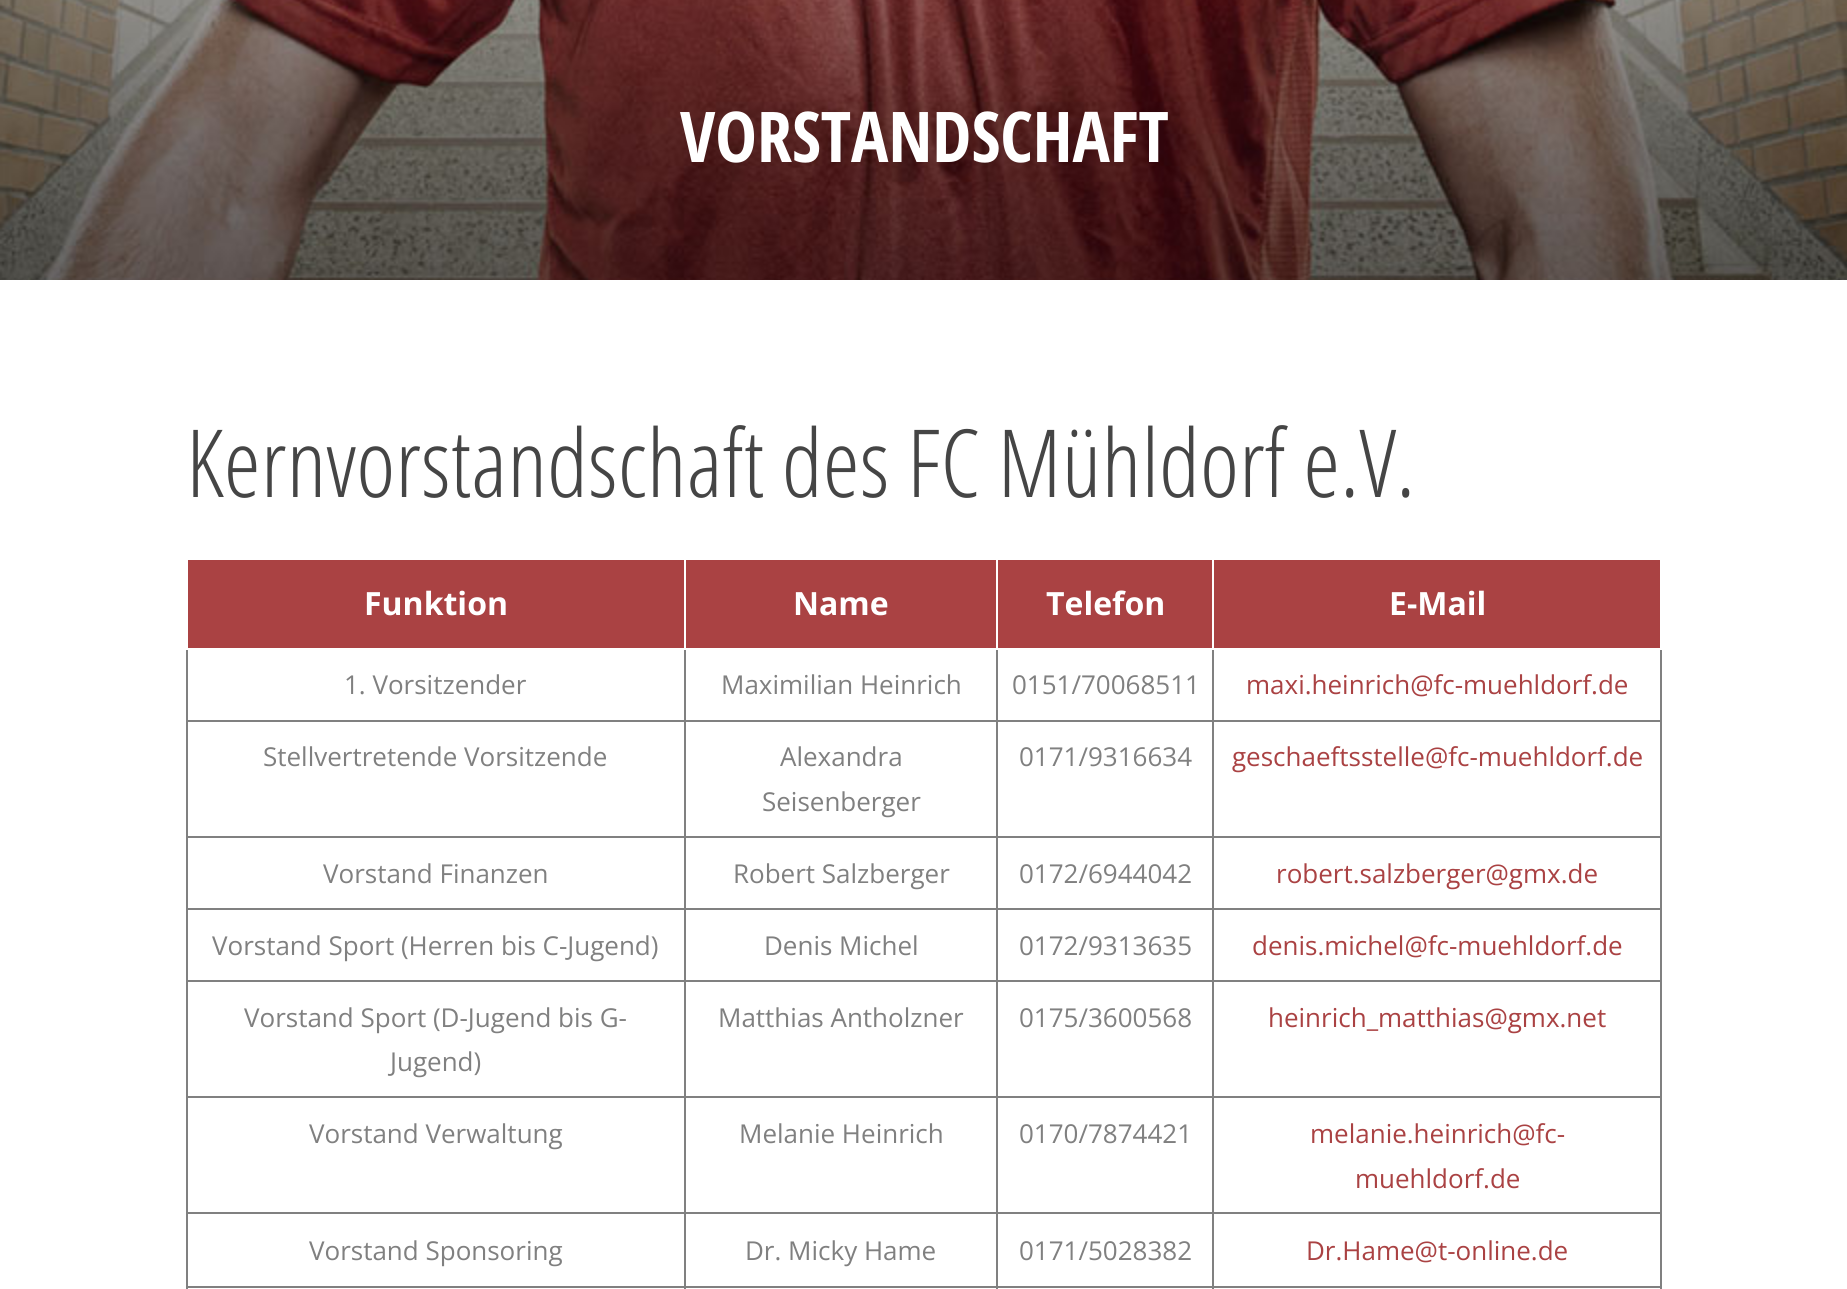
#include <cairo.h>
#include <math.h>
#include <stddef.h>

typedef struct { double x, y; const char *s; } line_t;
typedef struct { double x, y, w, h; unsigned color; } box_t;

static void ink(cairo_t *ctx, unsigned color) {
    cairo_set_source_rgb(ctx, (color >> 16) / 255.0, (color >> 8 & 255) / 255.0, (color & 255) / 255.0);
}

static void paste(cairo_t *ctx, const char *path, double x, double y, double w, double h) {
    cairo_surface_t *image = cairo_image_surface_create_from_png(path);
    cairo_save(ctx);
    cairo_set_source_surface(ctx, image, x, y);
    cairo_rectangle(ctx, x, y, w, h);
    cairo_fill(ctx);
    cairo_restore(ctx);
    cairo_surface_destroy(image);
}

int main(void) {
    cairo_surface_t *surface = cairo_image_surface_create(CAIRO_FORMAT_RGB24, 1847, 1289);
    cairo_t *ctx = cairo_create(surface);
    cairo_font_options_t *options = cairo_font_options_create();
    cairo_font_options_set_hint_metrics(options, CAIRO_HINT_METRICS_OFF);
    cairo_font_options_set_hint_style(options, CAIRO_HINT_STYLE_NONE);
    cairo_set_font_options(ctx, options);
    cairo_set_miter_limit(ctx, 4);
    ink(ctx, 0xFFFFFF);
    cairo_paint(ctx);
    paste(ctx, "media/1.png", 0, 0, 1847, 280);
    cairo_select_font_face(ctx, "Open Sans Condensed", CAIRO_FONT_SLANT_NORMAL, CAIRO_FONT_WEIGHT_BOLD);
    cairo_set_font_size(ctx, 70);
    ink(ctx, 0xFFFFFF);
    cairo_move_to(ctx, 680, 162);
    cairo_show_text(ctx, "VORSTANDSCHAFT");
    cairo_select_font_face(ctx, "Open Sans Condensed Light", CAIRO_FONT_SLANT_NORMAL, CAIRO_FONT_WEIGHT_NORMAL);
    cairo_set_font_size(ctx, 94);
    ink(ctx, 0x454545);
    cairo_move_to(ctx, 186, 497);
    cairo_show_text(ctx, "Kernvorstandschaft des FC Mühldorf e.V.");
    {
        static const box_t items[] = {
            {188, 560, 496, 88, 0xAA4243},
            {1212, 720, 450, 2, 0x808080},
            {1212, 836, 450, 2, 0x808080},
            {1212, 908, 450, 2, 0x808080},
            {1212, 980, 450, 2, 0x808080},
            {1212, 1096, 450, 2, 0x808080},
            {1212, 1212, 450, 2, 0x808080},
            {1212, 1286, 450, 2, 0x808080},
            {1212, 1286, 2, 3, 0x808080},
            {996, 1286, 218, 2, 0x808080},
            {1212, 1212, 2, 76, 0x808080},
            {996, 1212, 218, 2, 0x808080},
            {1212, 1096, 2, 118, 0x808080},
            {996, 1096, 218, 2, 0x808080},
            {1212, 980, 2, 118, 0x808080},
            {996, 980, 218, 2, 0x808080},
            {1212, 908, 2, 74, 0x808080},
            {996, 908, 218, 2, 0x808080},
            {1212, 836, 2, 74, 0x808080},
            {996, 836, 218, 2, 0x808080},
            {1212, 720, 2, 118, 0x808080},
            {996, 720, 218, 2, 0x808080},
            {996, 1286, 2, 3, 0x808080},
            {684, 1286, 314, 2, 0x808080},
            {996, 1212, 2, 76, 0x808080},
            {684, 1212, 314, 2, 0x808080},
            {996, 1096, 2, 118, 0x808080},
            {684, 1096, 314, 2, 0x808080},
            {996, 980, 2, 118, 0x808080},
            {684, 980, 314, 2, 0x808080},
            {996, 908, 2, 74, 0x808080},
            {684, 908, 314, 2, 0x808080},
            {996, 836, 2, 74, 0x808080},
            {684, 836, 314, 2, 0x808080},
            {996, 720, 2, 118, 0x808080},
            {684, 720, 314, 2, 0x808080},
            {684, 1286, 2, 3, 0x808080},
            {186, 1286, 500, 2, 0x808080},
            {684, 1212, 2, 76, 0x808080},
            {186, 1212, 500, 2, 0x808080},
            {684, 1096, 2, 118, 0x808080},
            {186, 1096, 500, 2, 0x808080},
            {684, 980, 2, 118, 0x808080},
            {186, 980, 500, 2, 0x808080},
            {684, 908, 2, 74, 0x808080},
            {186, 908, 500, 2, 0x808080},
            {684, 836, 2, 74, 0x808080},
            {186, 836, 500, 2, 0x808080},
            {684, 720, 2, 118, 0x808080},
            {186, 720, 500, 2, 0x808080},
            {186, 1286, 2, 3, 0x808080},
            {186, 1212, 2, 76, 0x808080},
            {186, 1096, 2, 118, 0x808080},
            {186, 980, 2, 118, 0x808080},
            {186, 908, 2, 74, 0x808080},
            {186, 836, 2, 74, 0x808080},
            {186, 648, 2, 190, 0x808080},
            {186, 648, 2, 2, 0xFFFFFF},
        };
        for (size_t i = 0; i < sizeof items / sizeof *items; i++) {
            ink(ctx, items[i].color);
            cairo_rectangle(ctx, items[i].x, items[i].y, items[i].w, items[i].h);
            cairo_fill(ctx);
        }
    }
    cairo_select_font_face(ctx, "Open Sans", CAIRO_FONT_SLANT_NORMAL, CAIRO_FONT_WEIGHT_BOLD);
    cairo_set_font_size(ctx, 32);
    cairo_move_to(ctx, 364, 615);
    cairo_show_text(ctx, "Funktion");
    {
        static const box_t items[] = {
            {686, 560, 310, 88, 0xAA4243},
            {684, 648, 2, 74, 0x808080},
            {684, 648, 2, 2, 0xFFFFFF},
        };
        for (size_t i = 0; i < sizeof items / sizeof *items; i++) {
            ink(ctx, items[i].color);
            cairo_rectangle(ctx, items[i].x, items[i].y, items[i].w, items[i].h);
            cairo_fill(ctx);
        }
    }
    cairo_move_to(ctx, 793, 615);
    cairo_show_text(ctx, "Name");
    {
        static const box_t items[] = {
            {998, 560, 214, 88, 0xAA4243},
            {996, 648, 2, 74, 0x808080},
            {996, 648, 2, 2, 0xFFFFFF},
        };
        for (size_t i = 0; i < sizeof items / sizeof *items; i++) {
            ink(ctx, items[i].color);
            cairo_rectangle(ctx, items[i].x, items[i].y, items[i].w, items[i].h);
            cairo_fill(ctx);
        }
    }
    cairo_move_to(ctx, 1046, 615);
    cairo_show_text(ctx, "Telefon");
    {
        static const box_t items[] = {
            {1214, 560, 446, 88, 0xAA4243},
            {1660, 1286, 2, 3, 0x808080},
            {1660, 1212, 2, 76, 0x808080},
            {1660, 1096, 2, 118, 0x808080},
            {1660, 980, 2, 118, 0x808080},
            {1660, 908, 2, 74, 0x808080},
            {1660, 836, 2, 74, 0x808080},
            {1660, 648, 2, 190, 0x808080},
            {1660, 648, 2, 2, 0xFFFFFF},
            {1212, 648, 2, 74, 0x808080},
            {1212, 648, 2, 2, 0xFFFFFF},
        };
        for (size_t i = 0; i < sizeof items / sizeof *items; i++) {
            ink(ctx, items[i].color);
            cairo_rectangle(ctx, items[i].x, items[i].y, items[i].w, items[i].h);
            cairo_fill(ctx);
        }
    }
    cairo_move_to(ctx, 1389, 615);
    cairo_show_text(ctx, "E-Mail");
    cairo_select_font_face(ctx, "Open Sans", CAIRO_FONT_SLANT_NORMAL, CAIRO_FONT_WEIGHT_NORMAL);
    cairo_set_font_size(ctx, 26);
    ink(ctx, 0x808080);
    {
        static const line_t items[] = {
            {344, 694, "1. Vorsitzender"},
            {721, 694, "Maximilian Heinrich"},
            {1012, 694, "0151/70068511"},
        };
        for (size_t i = 0; i < sizeof items / sizeof *items; i++) {
            cairo_move_to(ctx, items[i].x, items[i].y);
            cairo_show_text(ctx, items[i].s);
        }
    }
    ink(ctx, 0xAA4243);
    cairo_move_to(ctx, 1246, 694);
    cairo_show_text(ctx, "maxi.heinrich@fc-muehldorf.de");
    ink(ctx, 0x808080);
    {
        static const line_t items[] = {
            {263, 766, "Stellvertretende Vorsitzende"},
            {780, 766, "Alexandra"},
            {762, 811, "Seisenberger"},
            {1019, 766, "0171/9316634"},
        };
        for (size_t i = 0; i < sizeof items / sizeof *items; i++) {
            cairo_move_to(ctx, items[i].x, items[i].y);
            cairo_show_text(ctx, items[i].s);
        }
    }
    ink(ctx, 0xAA4243);
    cairo_move_to(ctx, 1232, 766);
    cairo_show_text(ctx, "geschaeftsstelle@fc-muehldorf.de");
    ink(ctx, 0x808080);
    {
        static const line_t items[] = {
            {323, 883, "Vorstand Finanzen"},
            {733, 883, "Robert Salzberger"},
            {1019, 883, "0172/6944042"},
        };
        for (size_t i = 0; i < sizeof items / sizeof *items; i++) {
            cairo_move_to(ctx, items[i].x, items[i].y);
            cairo_show_text(ctx, items[i].s);
        }
    }
    ink(ctx, 0xAA4243);
    cairo_move_to(ctx, 1276, 883);
    cairo_show_text(ctx, "robert.salzberger@gmx.de");
    ink(ctx, 0x808080);
    {
        static const line_t items[] = {
            {212, 955, "Vorstand Sport (Herren bis C-Jugend)"},
            {764, 955, "Denis Michel"},
            {1019, 955, "0172/9313635"},
        };
        for (size_t i = 0; i < sizeof items / sizeof *items; i++) {
            cairo_move_to(ctx, items[i].x, items[i].y);
            cairo_show_text(ctx, items[i].s);
        }
    }
    ink(ctx, 0xAA4243);
    cairo_move_to(ctx, 1252, 955);
    cairo_show_text(ctx, "denis.michel@fc-muehldorf.de");
    ink(ctx, 0x808080);
    {
        static const line_t items[] = {
            {244, 1027, "Vorstand Sport (D-Jugend bis G-"},
            {390, 1071, "Jugend)"},
            {718, 1027, "Matthias Antholzner"},
            {1019, 1027, "0175/3600568"},
        };
        for (size_t i = 0; i < sizeof items / sizeof *items; i++) {
            cairo_move_to(ctx, items[i].x, items[i].y);
            cairo_show_text(ctx, items[i].s);
        }
    }
    ink(ctx, 0xAA4243);
    cairo_move_to(ctx, 1268, 1027);
    cairo_show_text(ctx, "heinrich_matthias@gmx.net");
    ink(ctx, 0x808080);
    {
        static const line_t items[] = {
            {309, 1143, "Vorstand Verwaltung"},
            {739, 1143, "Melanie Heinrich"},
            {1019, 1143, "0170/7874421"},
        };
        for (size_t i = 0; i < sizeof items / sizeof *items; i++) {
            cairo_move_to(ctx, items[i].x, items[i].y);
            cairo_show_text(ctx, items[i].s);
        }
    }
    ink(ctx, 0xAA4243);
    cairo_move_to(ctx, 1310, 1143);
    cairo_show_text(ctx, "melanie.heinrich@fc-");
    cairo_move_to(ctx, 1355, 1188);
    cairo_show_text(ctx, "muehldorf.de");
    ink(ctx, 0x808080);
    {
        static const line_t items[] = {
            {309, 1260, "Vorstand Sponsoring"},
            {745, 1260, "Dr. Micky Hame"},
            {1019, 1260, "0171/5028382"},
        };
        for (size_t i = 0; i < sizeof items / sizeof *items; i++) {
            cairo_move_to(ctx, items[i].x, items[i].y);
            cairo_show_text(ctx, items[i].s);
        }
    }
    ink(ctx, 0xAA4243);
    cairo_move_to(ctx, 1306, 1260);
    cairo_show_text(ctx, "Dr.Hame@t-online.de");
    cairo_surface_write_to_png(surface, "image.png");
    cairo_font_options_destroy(options);
    cairo_destroy(ctx);
    cairo_surface_destroy(surface);
    return 0;
}
